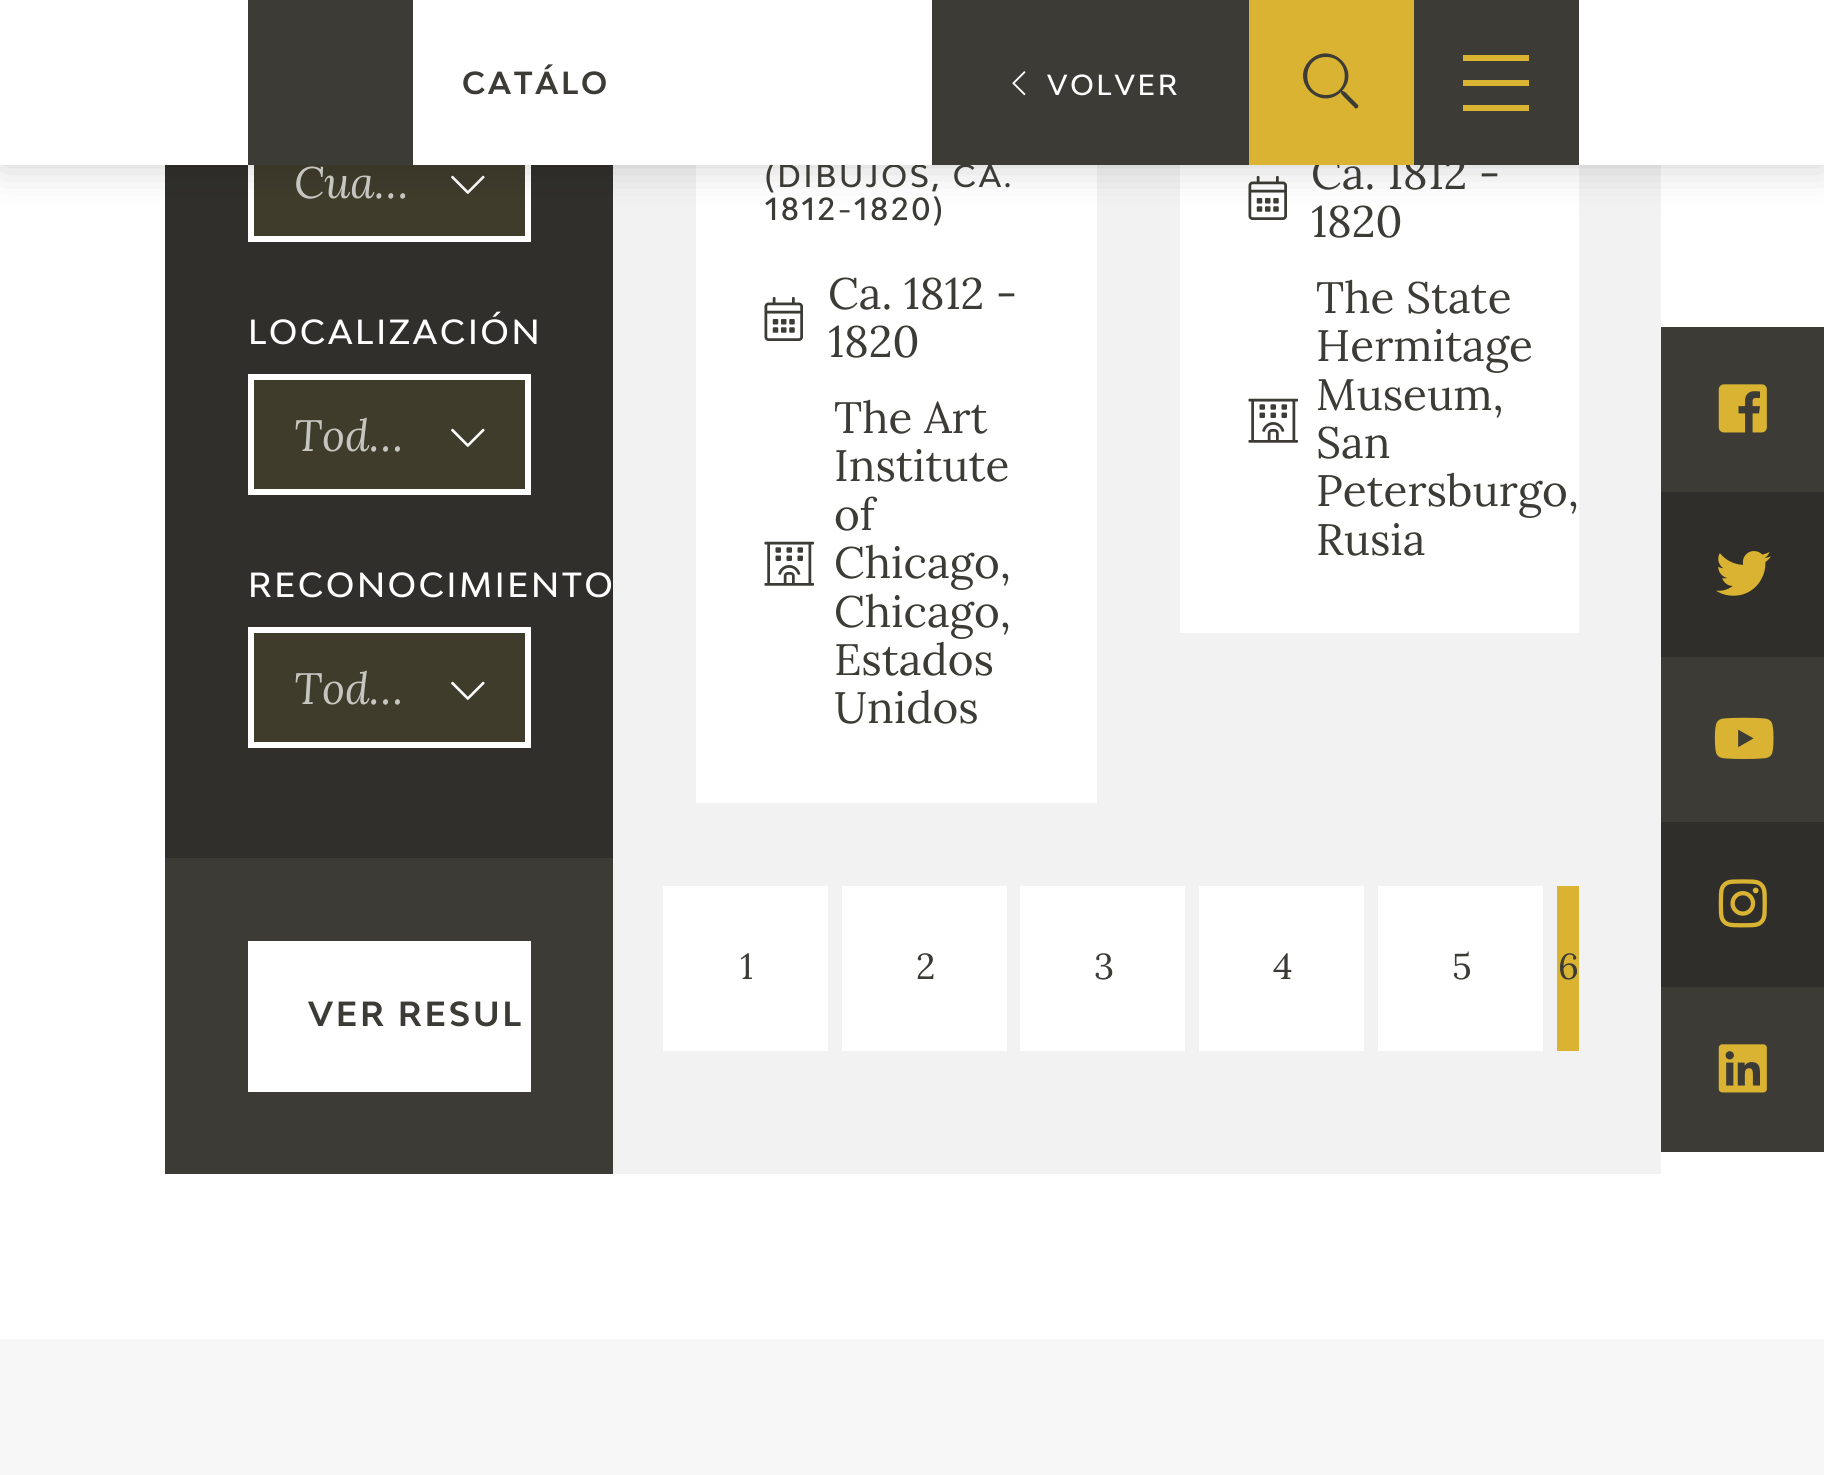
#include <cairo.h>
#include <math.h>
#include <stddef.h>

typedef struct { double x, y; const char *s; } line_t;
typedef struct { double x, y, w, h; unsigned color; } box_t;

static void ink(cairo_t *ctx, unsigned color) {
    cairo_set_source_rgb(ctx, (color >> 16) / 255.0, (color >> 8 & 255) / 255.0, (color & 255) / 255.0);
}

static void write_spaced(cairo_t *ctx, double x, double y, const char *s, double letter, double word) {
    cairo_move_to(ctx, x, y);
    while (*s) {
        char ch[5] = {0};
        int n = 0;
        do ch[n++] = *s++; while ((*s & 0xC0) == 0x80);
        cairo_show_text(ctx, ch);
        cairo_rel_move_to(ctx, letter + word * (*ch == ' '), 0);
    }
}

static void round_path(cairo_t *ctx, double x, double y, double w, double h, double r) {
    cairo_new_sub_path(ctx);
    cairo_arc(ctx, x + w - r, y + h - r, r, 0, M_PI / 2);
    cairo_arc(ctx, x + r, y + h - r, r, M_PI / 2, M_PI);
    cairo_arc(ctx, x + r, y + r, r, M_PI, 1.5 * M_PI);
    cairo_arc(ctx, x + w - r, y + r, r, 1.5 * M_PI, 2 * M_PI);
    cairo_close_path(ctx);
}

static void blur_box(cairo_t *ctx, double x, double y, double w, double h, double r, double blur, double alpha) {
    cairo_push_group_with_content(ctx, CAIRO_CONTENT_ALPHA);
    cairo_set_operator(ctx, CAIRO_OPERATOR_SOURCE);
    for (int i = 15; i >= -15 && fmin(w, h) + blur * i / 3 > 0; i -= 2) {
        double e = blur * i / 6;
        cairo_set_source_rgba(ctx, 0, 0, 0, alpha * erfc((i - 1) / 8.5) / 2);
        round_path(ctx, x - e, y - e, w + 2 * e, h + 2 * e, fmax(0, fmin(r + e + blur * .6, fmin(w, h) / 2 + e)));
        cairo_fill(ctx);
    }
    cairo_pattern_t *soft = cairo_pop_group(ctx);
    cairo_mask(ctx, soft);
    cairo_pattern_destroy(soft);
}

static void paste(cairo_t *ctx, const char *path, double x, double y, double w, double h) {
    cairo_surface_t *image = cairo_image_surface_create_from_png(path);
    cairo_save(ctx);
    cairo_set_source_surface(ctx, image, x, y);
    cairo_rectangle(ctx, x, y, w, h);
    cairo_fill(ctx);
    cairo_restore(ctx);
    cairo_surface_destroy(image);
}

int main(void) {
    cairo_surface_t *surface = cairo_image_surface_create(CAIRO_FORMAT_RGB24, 1824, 1475);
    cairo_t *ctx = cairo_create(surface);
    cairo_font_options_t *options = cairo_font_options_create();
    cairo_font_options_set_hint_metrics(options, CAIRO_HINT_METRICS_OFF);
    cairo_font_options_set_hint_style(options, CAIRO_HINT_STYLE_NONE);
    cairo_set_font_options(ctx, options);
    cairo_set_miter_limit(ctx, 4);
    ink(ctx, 0xFFFFFF);
    cairo_paint(ctx);
    ink(ctx, 0x302F2B);
    cairo_rectangle(ctx, 165, 165, 448, 693);
    cairo_fill(ctx);
    ink(ctx, 0x403C2C);
    cairo_rectangle(ctx, 254, 165, 271, 71);
    cairo_fill(ctx);
    cairo_rectangle(ctx, 251, 124, 277, 115);
    ink(ctx, 0xFFFFFF);
    cairo_set_line_width(ctx, 6);
    cairo_stroke(ctx);
    paste(ctx, "media/2.png", 451, 175, 34, 19);
    {
        static const box_t items[] = {
            {613, 165, 1048, 1009, 0xF2F2F2},
            {696, 165, 401, 638, 0xFFFFFF},
            {1180, 165, 399, 468, 0xFFFFFF},
        };
        for (size_t i = 0; i < sizeof items / sizeof *items; i++) {
            ink(ctx, items[i].color);
            cairo_rectangle(ctx, items[i].x, items[i].y, items[i].w, items[i].h);
            cairo_fill(ctx);
        }
    }
    paste(ctx, "media/3.png", 1248, 176, 39, 44);
    ink(ctx, 0x000000);
    blur_box(ctx, 0, 0, 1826, 165, 0, 20.5, 0.2);
    cairo_select_font_face(ctx, "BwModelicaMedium", CAIRO_FONT_SLANT_NORMAL, CAIRO_FONT_WEIGHT_NORMAL);
    cairo_set_font_size(ctx, 30.25);
    ink(ctx, 0x3C3B36);
    write_spaced(ctx, 765, 187, "(DIBUJOS, CA.", 2.75, 0);
    cairo_select_font_face(ctx, "Lora", CAIRO_FONT_SLANT_NORMAL, CAIRO_FONT_WEIGHT_NORMAL);
    cairo_set_font_size(ctx, 44);
    cairo_move_to(ctx, 1311, 189);
    cairo_show_text(ctx, "Ca. 1812 -");
    {
        static const box_t items[] = {
            {0, 0, 1824, 165, 0xFFFFFF},
            {248, 0, 165, 165, 0x3C3B36},
            {1249, 0, 165, 165, 0xD9B331},
        };
        for (size_t i = 0; i < sizeof items / sizeof *items; i++) {
            ink(ctx, items[i].color);
            cairo_rectangle(ctx, items[i].x, items[i].y, items[i].w, items[i].h);
            cairo_fill(ctx);
        }
    }
    ink(ctx, 0x3C3B36);
    cairo_new_path(ctx);
    cairo_move_to(ctx, 1358, 105);
    cairo_line_to(ctx, 1349, 96);
    cairo_curve_to(ctx, 1347, 94, 1345, 91, 1342, 91);
    cairo_curve_to(ctx, 1362, 70, 1331, 40, 1310, 60);
    cairo_curve_to(ctx, 1289, 81, 1320, 112, 1341, 92);
    cairo_curve_to(ctx, 1341, 95, 1342, 94, 1344, 97);
    cairo_line_to(ctx, 1353, 106);
    cairo_curve_to(ctx, 1354, 106, 1355, 110, 1357, 108);
    cairo_curve_to(ctx, 1358, 108, 1359, 106, 1358, 105);
    cairo_close_path(ctx);
    cairo_move_to(ctx, 1326, 95);
    cairo_curve_to(ctx, 1301, 95, 1301, 57, 1326, 57);
    cairo_curve_to(ctx, 1351, 57, 1351, 95, 1326, 95);
    cairo_close_path(ctx);
    cairo_fill(ctx);
    {
        static const box_t items[] = {
            {1414, 0, 165, 165, 0x3C3B36},
            {1463, 55, 66, 6, 0xD9B331},
            {1463, 80, 66, 6, 0xD9B331},
            {1463, 105, 66, 6, 0xD9B331},
        };
        for (size_t i = 0; i < sizeof items / sizeof *items; i++) {
            ink(ctx, items[i].color);
            cairo_rectangle(ctx, items[i].x, items[i].y, items[i].w, items[i].h);
            cairo_fill(ctx);
        }
    }
    cairo_select_font_face(ctx, "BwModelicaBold", CAIRO_FONT_SLANT_NORMAL, CAIRO_FONT_WEIGHT_NORMAL);
    cairo_set_font_size(ctx, 30.25);
    ink(ctx, 0x3C3B36);
    write_spaced(ctx, 462, 94, "CATÁLO", 2.75, 0);
    cairo_rectangle(ctx, 932, 0, 317, 165);
    cairo_fill(ctx);
    paste(ctx, "media/1.png", 1012, 71, 14, 25);
    cairo_select_font_face(ctx, "BwModelicaMedium", CAIRO_FONT_SLANT_NORMAL, CAIRO_FONT_WEIGHT_NORMAL);
    cairo_set_font_size(ctx, 27.5);
    ink(ctx, 0xFFFFFF);
    write_spaced(ctx, 1047, 95, "VOLVER", 2.75, 0);
    ink(ctx, 0x3C3B36);
    cairo_rectangle(ctx, 165, 858, 448, 316);
    cairo_fill(ctx);
    cairo_select_font_face(ctx, "Lora", CAIRO_FONT_SLANT_ITALIC, CAIRO_FONT_WEIGHT_NORMAL);
    cairo_set_font_size(ctx, 44);
    ink(ctx, 0xC6C5C0);
    cairo_move_to(ctx, 294, 198);
    cairo_show_text(ctx, "Cua…");
    cairo_select_font_face(ctx, "BwModelicaMedium", CAIRO_FONT_SLANT_NORMAL, CAIRO_FONT_WEIGHT_NORMAL);
    cairo_set_font_size(ctx, 33);
    ink(ctx, 0xFFFFFF);
    write_spaced(ctx, 248, 344, "LOCALIZACIÓN", 2.75, 0);
    ink(ctx, 0x403C2C);
    cairo_rectangle(ctx, 251, 377, 277, 115);
    cairo_fill_preserve(ctx);
    ink(ctx, 0xFFFFFF);
    cairo_stroke(ctx);
    cairo_select_font_face(ctx, "Lora", CAIRO_FONT_SLANT_ITALIC, CAIRO_FONT_WEIGHT_NORMAL);
    cairo_set_font_size(ctx, 44);
    ink(ctx, 0xC6C5C0);
    cairo_move_to(ctx, 294, 451);
    cairo_show_text(ctx, "Tod…");
    paste(ctx, "media/2.png", 451, 428, 34, 19);
    cairo_select_font_face(ctx, "BwModelicaMedium", CAIRO_FONT_SLANT_NORMAL, CAIRO_FONT_WEIGHT_NORMAL);
    cairo_set_font_size(ctx, 33);
    ink(ctx, 0xFFFFFF);
    write_spaced(ctx, 248, 597, "RECONOCIMIENTO", 2.75, 0);
    ink(ctx, 0x403C2C);
    cairo_rectangle(ctx, 251, 630, 277, 115);
    cairo_fill_preserve(ctx);
    ink(ctx, 0xFFFFFF);
    cairo_stroke(ctx);
    cairo_select_font_face(ctx, "Lora", CAIRO_FONT_SLANT_ITALIC, CAIRO_FONT_WEIGHT_NORMAL);
    cairo_set_font_size(ctx, 44);
    ink(ctx, 0xC6C5C0);
    cairo_move_to(ctx, 294, 704);
    cairo_show_text(ctx, "Tod…");
    paste(ctx, "media/2.png", 451, 681, 34, 19);
    ink(ctx, 0xFFFFFF);
    cairo_rectangle(ctx, 248, 941, 283, 151);
    cairo_fill(ctx);
    cairo_select_font_face(ctx, "BwModelicaBold", CAIRO_FONT_SLANT_NORMAL, CAIRO_FONT_WEIGHT_NORMAL);
    cairo_set_font_size(ctx, 33);
    ink(ctx, 0x3C3B36);
    write_spaced(ctx, 308, 1026, "VER RESUL", 2.75, 0);
    cairo_select_font_face(ctx, "BwModelicaMedium", CAIRO_FONT_SLANT_NORMAL, CAIRO_FONT_WEIGHT_NORMAL);
    cairo_set_font_size(ctx, 30.25);
    write_spaced(ctx, 765, 220, "1812-1820)", 2.75, 0);
    paste(ctx, "media/3.png", 764, 297, 39, 44);
    cairo_select_font_face(ctx, "Lora", CAIRO_FONT_SLANT_NORMAL, CAIRO_FONT_WEIGHT_NORMAL);
    cairo_set_font_size(ctx, 44);
    cairo_move_to(ctx, 828, 309);
    cairo_show_text(ctx, "Ca. 1812 -");
    cairo_move_to(ctx, 828, 357);
    cairo_show_text(ctx, "1820");
    paste(ctx, "media/4.png", 764, 541, 50, 45);
    {
        static const line_t items[] = {
            {834, 433, "The Art"},
            {834, 481, "Institute"},
            {834, 530, "of"},
            {834, 578, "Chicago,"},
            {834, 627, "Chicago,"},
            {834, 675, "Estados"},
            {834, 723, "Unidos"},
            {1311, 237, "1820"},
        };
        for (size_t i = 0; i < sizeof items / sizeof *items; i++) {
            cairo_move_to(ctx, items[i].x, items[i].y);
            cairo_show_text(ctx, items[i].s);
        }
    }
    paste(ctx, "media/4.png", 1248, 398, 50, 45);
    {
        static const line_t items[] = {
            {1316, 313, "The State"},
            {1316, 361, "Hermitage"},
            {1316, 410, "Museum,"},
            {1316, 458, "San"},
            {1316, 506, "Petersburgo,"},
            {1316, 555, "Rusia"},
        };
        for (size_t i = 0; i < sizeof items / sizeof *items; i++) {
            cairo_move_to(ctx, items[i].x, items[i].y);
            cairo_show_text(ctx, items[i].s);
        }
    }
    ink(ctx, 0xFFFFFF);
    cairo_rectangle(ctx, 663, 886, 165, 165);
    cairo_fill(ctx);
    cairo_set_font_size(ctx, 36);
    ink(ctx, 0x3C3B36);
    cairo_move_to(ctx, 740, 979);
    cairo_show_text(ctx, "1");
    ink(ctx, 0xFFFFFF);
    cairo_rectangle(ctx, 842, 886, 165, 165);
    cairo_fill(ctx);
    ink(ctx, 0x3C3B36);
    cairo_move_to(ctx, 916, 979);
    cairo_show_text(ctx, "2");
    ink(ctx, 0xFFFFFF);
    cairo_rectangle(ctx, 1020, 886, 165, 165);
    cairo_fill(ctx);
    ink(ctx, 0x3C3B36);
    cairo_move_to(ctx, 1094, 979);
    cairo_show_text(ctx, "3");
    ink(ctx, 0xFFFFFF);
    cairo_rectangle(ctx, 1199, 886, 165, 165);
    cairo_fill(ctx);
    ink(ctx, 0x3C3B36);
    cairo_move_to(ctx, 1273, 979);
    cairo_show_text(ctx, "4");
    ink(ctx, 0xFFFFFF);
    cairo_rectangle(ctx, 1378, 886, 165, 165);
    cairo_fill(ctx);
    ink(ctx, 0x3C3B36);
    cairo_move_to(ctx, 1452, 979);
    cairo_show_text(ctx, "5");
    ink(ctx, 0xD9B331);
    cairo_rectangle(ctx, 1557, 886, 22, 165);
    cairo_fill(ctx);
    ink(ctx, 0x3C3B36);
    cairo_move_to(ctx, 1558, 979);
    cairo_show_text(ctx, "6");
    cairo_rectangle(ctx, 1661, 327, 163, 165);
    cairo_fill(ctx);
    paste(ctx, "media/5.png", 1718, 384, 49, 49);
    ink(ctx, 0x2F2E2A);
    cairo_rectangle(ctx, 1661, 492, 163, 165);
    cairo_fill(ctx);
    paste(ctx, "media/6.png", 1716, 551, 55, 45);
    ink(ctx, 0x3C3B36);
    cairo_rectangle(ctx, 1661, 657, 163, 165);
    cairo_fill(ctx);
    paste(ctx, "media/7.png", 1714, 717, 60, 42);
    ink(ctx, 0x2F2E2A);
    cairo_rectangle(ctx, 1661, 822, 163, 165);
    cairo_fill(ctx);
    paste(ctx, "media/8.png", 1718, 879, 49, 49);
    ink(ctx, 0x3C3B36);
    cairo_rectangle(ctx, 1661, 987, 163, 165);
    cairo_fill(ctx);
    paste(ctx, "media/9.png", 1718, 1044, 49, 49);
    ink(ctx, 0xF7F7F7);
    cairo_rectangle(ctx, 0, 1339, 1824, 136);
    cairo_fill(ctx);
    cairo_surface_write_to_png(surface, "image.png");
    cairo_font_options_destroy(options);
    cairo_destroy(ctx);
    cairo_surface_destroy(surface);
    return 0;
}
